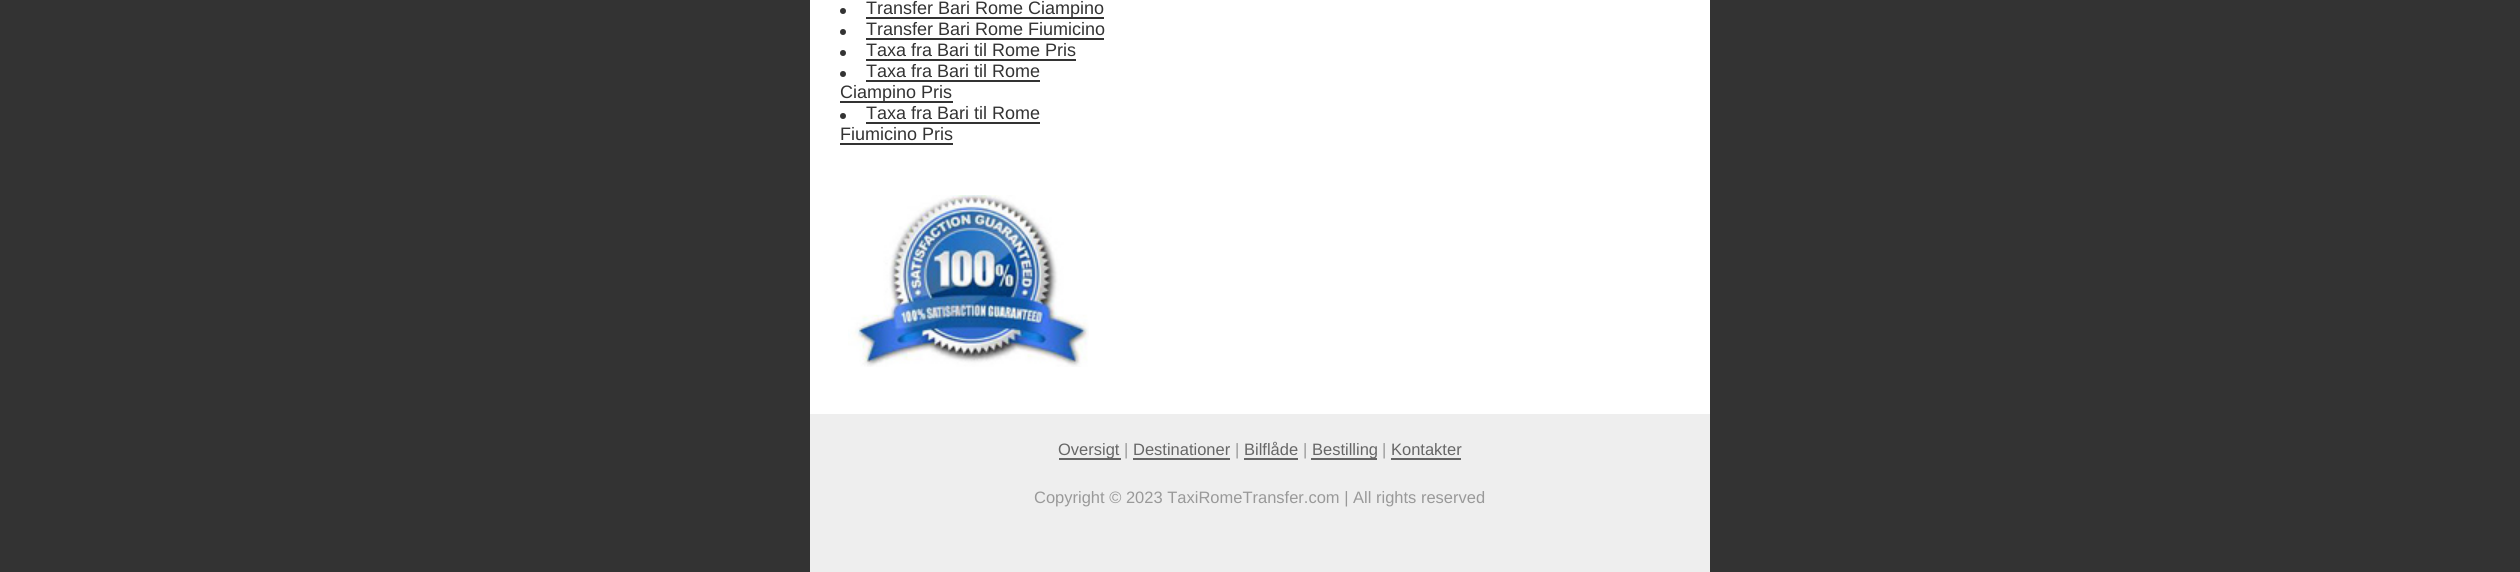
#include <cairo.h>
#include <math.h>
#include <stddef.h>


static void ink(cairo_t *ctx, unsigned color) {
    cairo_set_source_rgb(ctx, (color >> 16) / 255.0, (color >> 8 & 255) / 255.0, (color & 255) / 255.0);
}

static void paste(cairo_t *ctx, const char *path, double x, double y, double w, double h) {
    cairo_surface_t *image = cairo_image_surface_create_from_png(path);
    cairo_save(ctx);
    cairo_set_source_surface(ctx, image, x, y);
    cairo_rectangle(ctx, x, y, w, h);
    cairo_fill(ctx);
    cairo_restore(ctx);
    cairo_surface_destroy(image);
}

int main(void) {
    cairo_surface_t *surface = cairo_image_surface_create(CAIRO_FORMAT_RGB24, 2520, 572);
    cairo_t *ctx = cairo_create(surface);
    cairo_font_options_t *options = cairo_font_options_create();
    cairo_font_options_set_hint_metrics(options, CAIRO_HINT_METRICS_OFF);
    cairo_font_options_set_hint_style(options, CAIRO_HINT_STYLE_NONE);
    cairo_set_font_options(ctx, options);
    cairo_set_miter_limit(ctx, 4);
    ink(ctx, 0x333333);
    cairo_paint(ctx);
    ink(ctx, 0xFFFFFF);
    cairo_rectangle(ctx, 810, 0, 900, 414);
    cairo_fill(ctx);
    ink(ctx, 0x333333);
    cairo_arc(ctx, 843, 11, 3, 0, 2 * M_PI);
    cairo_fill(ctx);
    cairo_rectangle(ctx, 866, 17, 238, 2);
    cairo_fill(ctx);
    cairo_select_font_face(ctx, "Liberation Sans", CAIRO_FONT_SLANT_NORMAL, CAIRO_FONT_WEIGHT_NORMAL);
    cairo_set_font_size(ctx, 18);
    cairo_move_to(ctx, 866, 14);
    cairo_show_text(ctx, "Transfer Bari Rome Ciampino");
    cairo_new_path(ctx);
    cairo_arc(ctx, 843, 32, 3, 0, 2 * M_PI);
    cairo_fill(ctx);
    cairo_move_to(ctx, 866, 35);
    cairo_show_text(ctx, "Transfer Bari Rome Fiumicino");
    cairo_rectangle(ctx, 866, 38, 238, 2);
    cairo_fill(ctx);
    cairo_arc(ctx, 843, 53, 3, 0, 2 * M_PI);
    cairo_fill(ctx);
    cairo_move_to(ctx, 866, 56);
    cairo_show_text(ctx, "Taxa fra Bari til Rome Pris");
    cairo_rectangle(ctx, 866, 59, 210, 2);
    cairo_fill(ctx);
    cairo_arc(ctx, 843, 74, 3, 0, 2 * M_PI);
    cairo_fill(ctx);
    cairo_move_to(ctx, 866, 77);
    cairo_show_text(ctx, "Taxa fra Bari til Rome");
    cairo_rectangle(ctx, 866, 80, 174, 2);
    cairo_fill(ctx);
    cairo_rectangle(ctx, 840, 101, 113, 2);
    cairo_fill(ctx);
    cairo_move_to(ctx, 840, 98);
    cairo_show_text(ctx, "Ciampino Pris");
    cairo_new_path(ctx);
    cairo_arc(ctx, 843, 116, 3, 0, 2 * M_PI);
    cairo_fill(ctx);
    cairo_move_to(ctx, 866, 119);
    cairo_show_text(ctx, "Taxa fra Bari til Rome");
    cairo_rectangle(ctx, 866, 122, 174, 2);
    cairo_fill(ctx);
    cairo_move_to(ctx, 840, 140);
    cairo_show_text(ctx, "Fiumicino Pris");
    cairo_rectangle(ctx, 840, 143, 113, 2);
    cairo_fill(ctx);
    paste(ctx, "media/1.png", 848, 195, 241, 172);
    ink(ctx, 0xEEEEEE);
    cairo_rectangle(ctx, 810, 414, 900, 158);
    cairo_fill(ctx);
    ink(ctx, 0x666666);
    cairo_rectangle(ctx, 1059, 458, 62, 2);
    cairo_fill(ctx);
    cairo_set_font_size(ctx, 16.5);
    cairo_move_to(ctx, 1058, 455);
    cairo_show_text(ctx, "Oversigt");
    ink(ctx, 0x999999);
    cairo_move_to(ctx, 1124, 455);
    cairo_show_text(ctx, "|");
    ink(ctx, 0x666666);
    cairo_move_to(ctx, 1133, 455);
    cairo_show_text(ctx, "Destinationer");
    cairo_rectangle(ctx, 1133, 458, 97, 2);
    cairo_fill(ctx);
    ink(ctx, 0x999999);
    cairo_move_to(ctx, 1235, 455);
    cairo_show_text(ctx, "|");
    ink(ctx, 0x666666);
    cairo_move_to(ctx, 1244, 455);
    cairo_show_text(ctx, "Bilflåde");
    cairo_rectangle(ctx, 1244, 458, 54, 2);
    cairo_fill(ctx);
    ink(ctx, 0x999999);
    cairo_move_to(ctx, 1303, 455);
    cairo_show_text(ctx, "|");
    ink(ctx, 0x666666);
    cairo_rectangle(ctx, 1311, 458, 66, 2);
    cairo_fill(ctx);
    cairo_move_to(ctx, 1312, 455);
    cairo_show_text(ctx, "Bestilling");
    ink(ctx, 0x999999);
    cairo_move_to(ctx, 1382, 455);
    cairo_show_text(ctx, "|");
    ink(ctx, 0x666666);
    cairo_move_to(ctx, 1391, 455);
    cairo_show_text(ctx, "Kontakter");
    cairo_rectangle(ctx, 1391, 458, 70, 2);
    cairo_fill(ctx);
    ink(ctx, 0x999999);
    cairo_move_to(ctx, 1034, 503);
    cairo_show_text(ctx, "Copyright © 2023 TaxiRomeTransfer.com | All rights reserved");
    cairo_surface_write_to_png(surface, "image.png");
    cairo_font_options_destroy(options);
    cairo_destroy(ctx);
    cairo_surface_destroy(surface);
    return 0;
}
